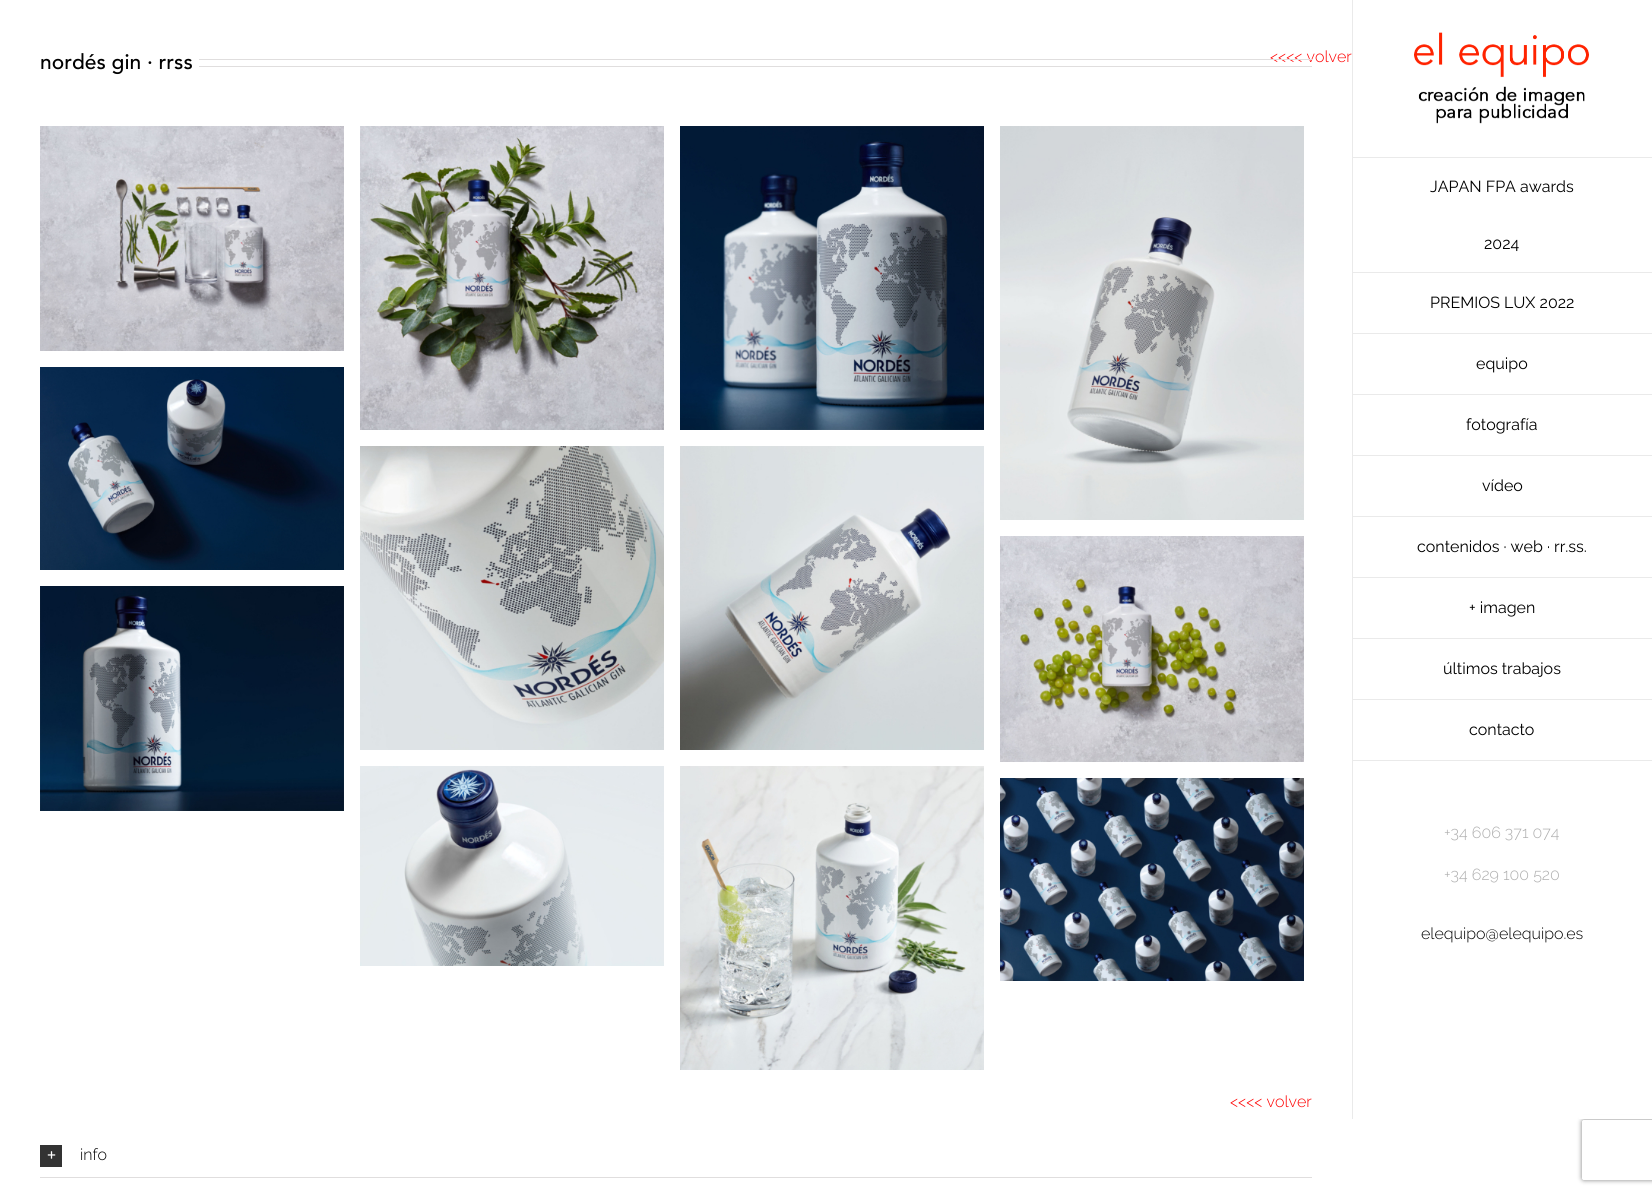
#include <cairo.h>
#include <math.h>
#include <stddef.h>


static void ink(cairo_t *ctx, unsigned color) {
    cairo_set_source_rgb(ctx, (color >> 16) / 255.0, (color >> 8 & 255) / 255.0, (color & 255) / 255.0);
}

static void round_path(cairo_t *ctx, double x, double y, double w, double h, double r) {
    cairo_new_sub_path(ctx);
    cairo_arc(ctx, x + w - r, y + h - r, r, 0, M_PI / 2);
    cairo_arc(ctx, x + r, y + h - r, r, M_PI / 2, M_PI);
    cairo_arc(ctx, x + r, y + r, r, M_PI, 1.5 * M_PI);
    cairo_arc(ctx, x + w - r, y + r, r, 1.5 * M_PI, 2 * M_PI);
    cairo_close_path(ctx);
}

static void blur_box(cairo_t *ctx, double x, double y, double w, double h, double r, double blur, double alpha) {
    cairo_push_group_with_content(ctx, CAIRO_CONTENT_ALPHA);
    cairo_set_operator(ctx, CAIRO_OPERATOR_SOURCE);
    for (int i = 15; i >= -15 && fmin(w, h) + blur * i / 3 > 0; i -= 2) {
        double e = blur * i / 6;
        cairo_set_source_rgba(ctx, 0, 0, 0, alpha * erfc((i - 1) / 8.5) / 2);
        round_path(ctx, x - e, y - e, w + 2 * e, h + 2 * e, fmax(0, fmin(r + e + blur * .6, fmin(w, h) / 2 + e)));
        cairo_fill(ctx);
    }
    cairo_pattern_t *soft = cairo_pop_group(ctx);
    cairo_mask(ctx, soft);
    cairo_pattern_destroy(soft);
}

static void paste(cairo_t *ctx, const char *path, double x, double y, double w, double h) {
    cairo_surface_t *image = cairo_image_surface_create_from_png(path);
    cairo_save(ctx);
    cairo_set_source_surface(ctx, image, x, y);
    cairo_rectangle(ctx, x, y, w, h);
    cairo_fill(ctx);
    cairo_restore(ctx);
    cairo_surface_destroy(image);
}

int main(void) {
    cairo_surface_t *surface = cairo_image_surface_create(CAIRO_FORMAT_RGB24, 1652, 1194);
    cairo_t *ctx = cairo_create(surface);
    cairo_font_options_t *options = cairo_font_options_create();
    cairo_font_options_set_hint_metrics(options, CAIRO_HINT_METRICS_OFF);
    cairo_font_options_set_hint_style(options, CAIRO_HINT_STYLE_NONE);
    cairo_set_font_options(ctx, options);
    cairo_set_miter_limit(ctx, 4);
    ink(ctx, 0xFFFFFF);
    cairo_paint(ctx);
    cairo_select_font_face(ctx, "Avenir Medium", CAIRO_FONT_SLANT_NORMAL, CAIRO_FONT_WEIGHT_NORMAL);
    cairo_set_font_size(ctx, 21);
    ink(ctx, 0x000000);
    cairo_move_to(ctx, 40, 69);
    cairo_show_text(ctx, "nordés gin · rrss");
    cairo_select_font_face(ctx, "Raleway Light", CAIRO_FONT_SLANT_NORMAL, CAIRO_FONT_WEIGHT_NORMAL);
    cairo_set_font_size(ctx, 16);
    ink(ctx, 0xFF0000);
    cairo_move_to(ctx, 1270, 62);
    cairo_show_text(ctx, "<<<< volver");
    ink(ctx, 0xE0DEDE);
    cairo_rectangle(ctx, 199, 59, 1113, 1);
    cairo_fill(ctx);
    cairo_rectangle(ctx, 199, 66, 1113, 1);
    cairo_fill(ctx);
    paste(ctx, "media/1.png", 40, 126, 304, 225);
    paste(ctx, "media/2.png", 360, 126, 304, 304);
    paste(ctx, "media/3.png", 680, 126, 304, 304);
    paste(ctx, "media/4.png", 1000, 126, 304, 394);
    paste(ctx, "media/5.png", 40, 367, 304, 203);
    paste(ctx, "media/6.png", 360, 446, 304, 304);
    paste(ctx, "media/7.png", 680, 446, 304, 304);
    paste(ctx, "media/8.png", 1000, 536, 304, 226);
    paste(ctx, "media/9.png", 40, 586, 304, 225);
    paste(ctx, "media/10.png", 360, 766, 304, 200);
    paste(ctx, "media/11.png", 680, 766, 304, 304);
    paste(ctx, "media/12.png", 1000, 778, 304, 203);
    ink(ctx, 0xFF0000);
    cairo_move_to(ctx, 1230, 1107);
    cairo_show_text(ctx, "<<<< volver");
    ink(ctx, 0xE0DEDE);
    cairo_rectangle(ctx, 40, 1177, 1272, 1);
    cairo_fill(ctx);
    ink(ctx, 0x333333);
    cairo_rectangle(ctx, 40, 1145, 22, 22);
    cairo_fill(ctx);
    paste(ctx, "media/13.png", 47, 1151, 9, 8);
    ink(ctx, 0x000000);
    cairo_move_to(ctx, 80, 1160);
    cairo_show_text(ctx, "info");
    ink(ctx, 0xEAEAEA);
    cairo_rectangle(ctx, 1352, 0, 1, 1119);
    cairo_fill(ctx);
    cairo_save(ctx);
    cairo_set_fill_rule(ctx, CAIRO_FILL_RULE_EVEN_ODD);
    cairo_new_path(ctx);
    cairo_move_to(ctx, 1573, 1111);
    cairo_line_to(ctx, 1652, 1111);
    cairo_line_to(ctx, 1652, 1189);
    cairo_line_to(ctx, 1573, 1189);
    cairo_close_path(ctx);
    cairo_move_to(ctx, 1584, 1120);
    cairo_line_to(ctx, 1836, 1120);
    cairo_curve_to(ctx, 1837, 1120, 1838, 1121, 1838, 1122);
    cairo_line_to(ctx, 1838, 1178);
    cairo_curve_to(ctx, 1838, 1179, 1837, 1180, 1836, 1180);
    cairo_line_to(ctx, 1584, 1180);
    cairo_curve_to(ctx, 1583, 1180, 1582, 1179, 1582, 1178);
    cairo_line_to(ctx, 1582, 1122);
    cairo_curve_to(ctx, 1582, 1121, 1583, 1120, 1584, 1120);
    cairo_close_path(ctx);
    cairo_clip(ctx);
    ink(ctx, 0x808080);
    blur_box(ctx, 1582, 1120, 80, 60, 2, 2.5, 1);
    cairo_restore(ctx);
    ink(ctx, 0xFFFFFF);
    cairo_rectangle(ctx, 1579, 1115, 73, 4);
    cairo_fill(ctx);
    paste(ctx, "media/14.png", 1414, 32, 175, 92);
    ink(ctx, 0xEAEAEA);
    cairo_rectangle(ctx, 1352, 157, 300, 1);
    cairo_fill(ctx);
    cairo_rectangle(ctx, 1352, 272, 300, 1);
    cairo_fill(ctx);
    cairo_select_font_face(ctx, "Raleway", CAIRO_FONT_SLANT_NORMAL, CAIRO_FONT_WEIGHT_NORMAL);
    ink(ctx, 0x000000);
    cairo_move_to(ctx, 1430, 192);
    cairo_show_text(ctx, "JAPAN FPA awards");
    cairo_move_to(ctx, 1484, 249);
    cairo_show_text(ctx, "2024");
    ink(ctx, 0xEAEAEA);
    cairo_rectangle(ctx, 1352, 333, 300, 1);
    cairo_fill(ctx);
    ink(ctx, 0x000000);
    cairo_move_to(ctx, 1430, 308);
    cairo_show_text(ctx, "PREMIOS LUX 2022");
    ink(ctx, 0xEAEAEA);
    cairo_rectangle(ctx, 1352, 394, 300, 1);
    cairo_fill(ctx);
    ink(ctx, 0x000000);
    cairo_move_to(ctx, 1476, 369);
    cairo_show_text(ctx, "equipo");
    ink(ctx, 0xEAEAEA);
    cairo_rectangle(ctx, 1352, 455, 300, 1);
    cairo_fill(ctx);
    ink(ctx, 0x000000);
    cairo_move_to(ctx, 1466, 430);
    cairo_show_text(ctx, "fotografía");
    ink(ctx, 0xEAEAEA);
    cairo_rectangle(ctx, 1352, 516, 300, 1);
    cairo_fill(ctx);
    ink(ctx, 0x000000);
    cairo_move_to(ctx, 1482, 491);
    cairo_show_text(ctx, "vídeo");
    ink(ctx, 0xEAEAEA);
    cairo_rectangle(ctx, 1352, 577, 300, 1);
    cairo_fill(ctx);
    ink(ctx, 0x000000);
    cairo_move_to(ctx, 1417, 552);
    cairo_show_text(ctx, "contenidos · web · rr.ss.");
    ink(ctx, 0xEAEAEA);
    cairo_rectangle(ctx, 1352, 638, 300, 1);
    cairo_fill(ctx);
    ink(ctx, 0x000000);
    cairo_move_to(ctx, 1469, 613);
    cairo_show_text(ctx, "+ imagen");
    ink(ctx, 0xEAEAEA);
    cairo_rectangle(ctx, 1352, 699, 300, 1);
    cairo_fill(ctx);
    ink(ctx, 0x000000);
    cairo_move_to(ctx, 1443, 674);
    cairo_show_text(ctx, "últimos trabajos");
    ink(ctx, 0xEAEAEA);
    cairo_rectangle(ctx, 1352, 760, 300, 1);
    cairo_fill(ctx);
    ink(ctx, 0x000000);
    cairo_move_to(ctx, 1469, 735);
    cairo_show_text(ctx, "contacto");
    cairo_select_font_face(ctx, "Raleway Light", CAIRO_FONT_SLANT_NORMAL, CAIRO_FONT_WEIGHT_NORMAL);
    ink(ctx, 0xAFAFAF);
    cairo_move_to(ctx, 1444, 838);
    cairo_show_text(ctx, "+34 606 371 074");
    cairo_move_to(ctx, 1444, 880);
    cairo_show_text(ctx, "+34 629 100 520");
    ink(ctx, 0x000000);
    cairo_move_to(ctx, 1421, 939);
    cairo_show_text(ctx, "elequipo@elequipo.es");
    cairo_surface_write_to_png(surface, "image.png");
    cairo_font_options_destroy(options);
    cairo_destroy(ctx);
    cairo_surface_destroy(surface);
    return 0;
}
